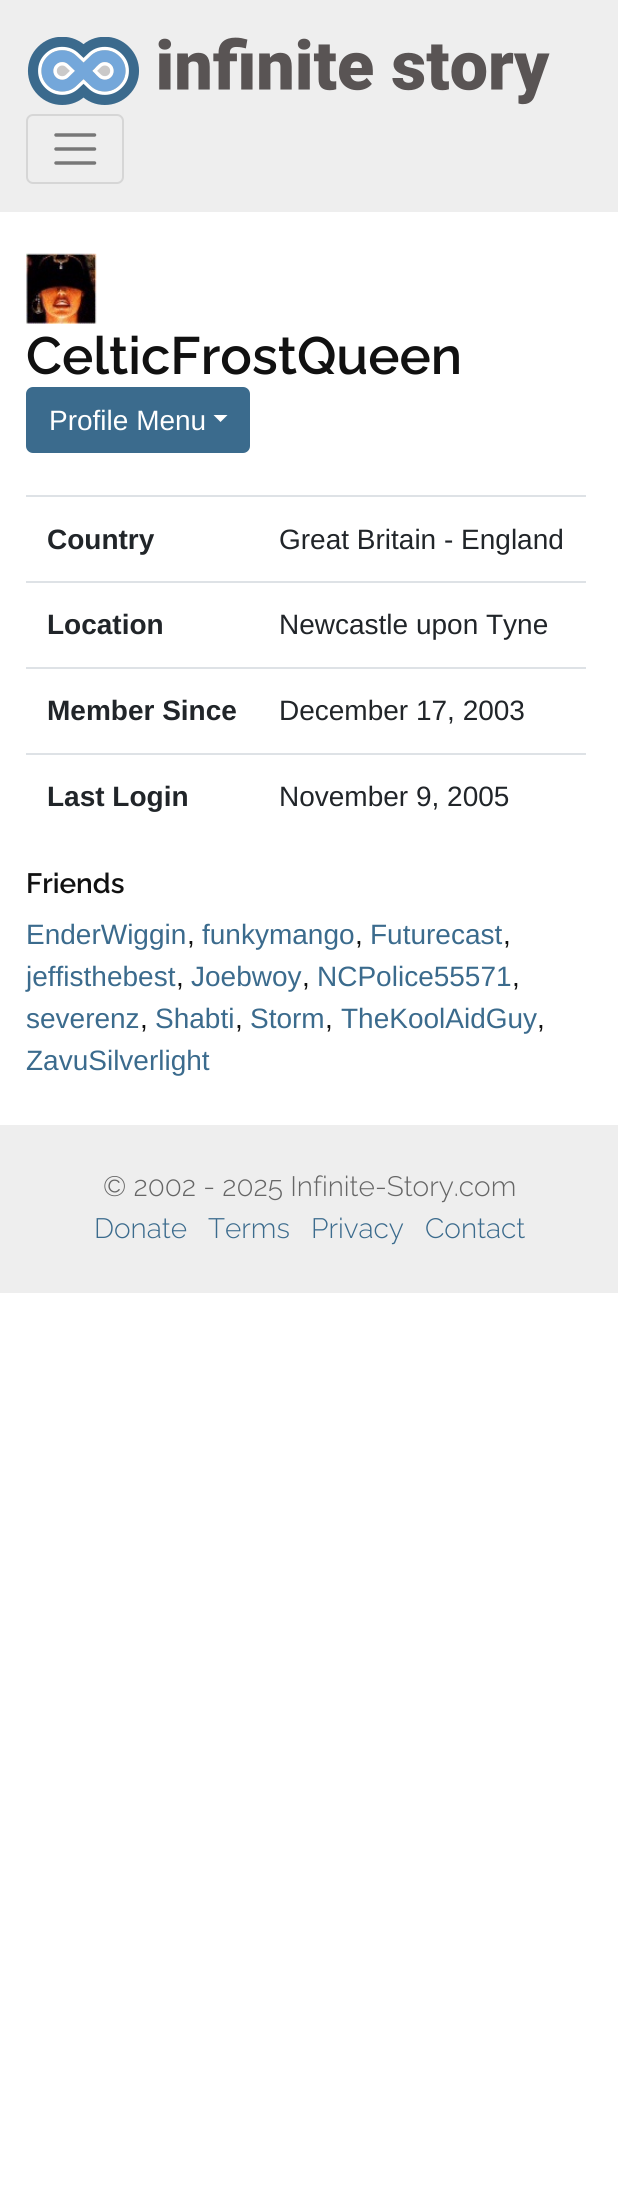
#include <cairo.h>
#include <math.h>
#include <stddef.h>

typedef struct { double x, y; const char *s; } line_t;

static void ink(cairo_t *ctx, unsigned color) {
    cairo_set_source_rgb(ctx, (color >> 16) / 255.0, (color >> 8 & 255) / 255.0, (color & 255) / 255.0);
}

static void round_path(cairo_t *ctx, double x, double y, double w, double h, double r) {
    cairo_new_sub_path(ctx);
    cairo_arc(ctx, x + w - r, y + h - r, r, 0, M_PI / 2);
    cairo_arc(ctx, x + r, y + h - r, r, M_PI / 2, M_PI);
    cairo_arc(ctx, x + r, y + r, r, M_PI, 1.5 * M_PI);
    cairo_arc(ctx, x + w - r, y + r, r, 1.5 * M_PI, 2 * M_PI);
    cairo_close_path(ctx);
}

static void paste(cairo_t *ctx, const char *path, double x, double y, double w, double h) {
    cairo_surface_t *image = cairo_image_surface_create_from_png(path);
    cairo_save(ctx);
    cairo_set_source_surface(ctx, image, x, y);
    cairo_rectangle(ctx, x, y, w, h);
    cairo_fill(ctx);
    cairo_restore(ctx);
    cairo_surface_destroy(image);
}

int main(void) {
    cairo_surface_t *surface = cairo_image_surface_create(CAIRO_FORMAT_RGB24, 618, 2193);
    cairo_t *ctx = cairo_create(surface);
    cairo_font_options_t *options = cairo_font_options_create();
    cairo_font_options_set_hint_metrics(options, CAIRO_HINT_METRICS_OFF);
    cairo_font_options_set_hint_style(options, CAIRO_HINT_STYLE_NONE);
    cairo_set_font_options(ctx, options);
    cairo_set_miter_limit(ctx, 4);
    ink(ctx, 0xFFFFFF);
    cairo_paint(ctx);
    ink(ctx, 0xEEEEEE);
    cairo_rectangle(ctx, 0, 0, 618, 212);
    cairo_fill(ctx);
    paste(ctx, "media/1.png", 27, 37, 523, 68);
    round_path(ctx, 27, 115, 96, 68, 6);
    ink(ctx, 0xD6D6D6);
    cairo_stroke(ctx);
    cairo_new_path(ctx);
    cairo_move_to(ctx, 56, 135);
    cairo_line_to(ctx, 94.5, 135);
    cairo_move_to(ctx, 56, 149);
    cairo_line_to(ctx, 94.5, 149);
    cairo_move_to(ctx, 56, 163);
    cairo_line_to(ctx, 94.5, 163);
    ink(ctx, 0x777777);
    cairo_set_line_width(ctx, 3.5);
    cairo_set_line_cap(ctx, CAIRO_LINE_CAP_ROUND);
    cairo_stroke(ctx);
    paste(ctx, "media/2.png", 26, 253, 71, 71);
    cairo_select_font_face(ctx, "Raleway SemiBold", CAIRO_FONT_SLANT_NORMAL, CAIRO_FONT_WEIGHT_NORMAL);
    cairo_set_font_size(ctx, 52.5);
    ink(ctx, 0x111111);
    cairo_move_to(ctx, 26, 374);
    cairo_show_text(ctx, "CelticFrostQueen");
    ink(ctx, 0x3B6B8D);
    round_path(ctx, 27, 388, 222, 64, 6);
    cairo_fill_preserve(ctx);
    cairo_set_line_width(ctx, 2);
    cairo_set_line_cap(ctx, CAIRO_LINE_CAP_BUTT);
    cairo_stroke(ctx);
    cairo_select_font_face(ctx, "Liberation Sans", CAIRO_FONT_SLANT_NORMAL, CAIRO_FONT_WEIGHT_NORMAL);
    cairo_set_font_size(ctx, 28);
    ink(ctx, 0xFFFFFF);
    cairo_move_to(ctx, 49, 430);
    cairo_show_text(ctx, "Profile Menu");
    cairo_new_path(ctx);
    cairo_move_to(ctx, 213.5, 415);
    cairo_line_to(ctx, 227.5, 415);
    cairo_line_to(ctx, 220.5, 422);
    cairo_close_path(ctx);
    cairo_fill(ctx);
    cairo_select_font_face(ctx, "Liberation Sans", CAIRO_FONT_SLANT_NORMAL, CAIRO_FONT_WEIGHT_BOLD);
    ink(ctx, 0x212529);
    cairo_move_to(ctx, 47, 549);
    cairo_show_text(ctx, "Country");
    ink(ctx, 0xDEE2E6);
    cairo_rectangle(ctx, 26, 495, 560, 2);
    cairo_fill(ctx);
    cairo_select_font_face(ctx, "Liberation Sans", CAIRO_FONT_SLANT_NORMAL, CAIRO_FONT_WEIGHT_NORMAL);
    ink(ctx, 0x212529);
    cairo_move_to(ctx, 279, 549);
    cairo_show_text(ctx, "Great Britain - England");
    cairo_select_font_face(ctx, "Liberation Sans", CAIRO_FONT_SLANT_NORMAL, CAIRO_FONT_WEIGHT_BOLD);
    cairo_move_to(ctx, 47, 634);
    cairo_show_text(ctx, "Location");
    ink(ctx, 0xDEE2E6);
    cairo_rectangle(ctx, 26, 581, 560, 2);
    cairo_fill(ctx);
    cairo_select_font_face(ctx, "Liberation Sans", CAIRO_FONT_SLANT_NORMAL, CAIRO_FONT_WEIGHT_NORMAL);
    ink(ctx, 0x212529);
    cairo_move_to(ctx, 279, 634);
    cairo_show_text(ctx, "Newcastle upon Tyne");
    cairo_select_font_face(ctx, "Liberation Sans", CAIRO_FONT_SLANT_NORMAL, CAIRO_FONT_WEIGHT_BOLD);
    cairo_move_to(ctx, 47, 720);
    cairo_show_text(ctx, "Member Since");
    ink(ctx, 0xDEE2E6);
    cairo_rectangle(ctx, 26, 667, 560, 2);
    cairo_fill(ctx);
    cairo_select_font_face(ctx, "Liberation Sans", CAIRO_FONT_SLANT_NORMAL, CAIRO_FONT_WEIGHT_NORMAL);
    ink(ctx, 0x212529);
    cairo_move_to(ctx, 279, 720);
    cairo_show_text(ctx, "December 17, 2003");
    cairo_select_font_face(ctx, "Liberation Sans", CAIRO_FONT_SLANT_NORMAL, CAIRO_FONT_WEIGHT_BOLD);
    cairo_move_to(ctx, 47, 806);
    cairo_show_text(ctx, "Last Login");
    ink(ctx, 0xDEE2E6);
    cairo_rectangle(ctx, 26, 753, 560, 2);
    cairo_fill(ctx);
    cairo_select_font_face(ctx, "Liberation Sans", CAIRO_FONT_SLANT_NORMAL, CAIRO_FONT_WEIGHT_NORMAL);
    ink(ctx, 0x212529);
    cairo_move_to(ctx, 279, 806);
    cairo_show_text(ctx, "November 9, 2005");
    cairo_select_font_face(ctx, "Raleway SemiBold", CAIRO_FONT_SLANT_NORMAL, CAIRO_FONT_WEIGHT_NORMAL);
    ink(ctx, 0x111111);
    cairo_move_to(ctx, 26, 893);
    cairo_show_text(ctx, "Friends");
    cairo_select_font_face(ctx, "Liberation Sans", CAIRO_FONT_SLANT_NORMAL, CAIRO_FONT_WEIGHT_NORMAL);
    ink(ctx, 0x3B6B8D);
    cairo_move_to(ctx, 26, 944);
    cairo_show_text(ctx, "EnderWiggin");
    ink(ctx, 0x111111);
    cairo_move_to(ctx, 187, 944);
    cairo_show_text(ctx, ",");
    ink(ctx, 0x3B6B8D);
    cairo_move_to(ctx, 202, 944);
    cairo_show_text(ctx, "funkymango");
    ink(ctx, 0x111111);
    cairo_move_to(ctx, 355, 944);
    cairo_show_text(ctx, ",");
    ink(ctx, 0x3B6B8D);
    cairo_move_to(ctx, 370, 944);
    cairo_show_text(ctx, "Futurecast");
    ink(ctx, 0x111111);
    cairo_move_to(ctx, 503, 944);
    cairo_show_text(ctx, ",");
    ink(ctx, 0x3B6B8D);
    cairo_move_to(ctx, 26, 986);
    cairo_show_text(ctx, "jeffisthebest");
    ink(ctx, 0x111111);
    cairo_move_to(ctx, 176, 986);
    cairo_show_text(ctx, ",");
    ink(ctx, 0x3B6B8D);
    cairo_move_to(ctx, 191, 986);
    cairo_show_text(ctx, "Joebwoy");
    ink(ctx, 0x111111);
    cairo_move_to(ctx, 302, 986);
    cairo_show_text(ctx, ",");
    ink(ctx, 0x3B6B8D);
    cairo_move_to(ctx, 317, 986);
    cairo_show_text(ctx, "NCPolice55571");
    ink(ctx, 0x111111);
    cairo_move_to(ctx, 512, 986);
    cairo_show_text(ctx, ",");
    ink(ctx, 0x3B6B8D);
    cairo_move_to(ctx, 26, 1028);
    cairo_show_text(ctx, "severenz");
    ink(ctx, 0x111111);
    cairo_move_to(ctx, 140, 1028);
    cairo_show_text(ctx, ",");
    ink(ctx, 0x3B6B8D);
    cairo_move_to(ctx, 155, 1028);
    cairo_show_text(ctx, "Shabti");
    ink(ctx, 0x111111);
    cairo_move_to(ctx, 235, 1028);
    cairo_show_text(ctx, ",");
    ink(ctx, 0x3B6B8D);
    cairo_move_to(ctx, 250, 1028);
    cairo_show_text(ctx, "Storm");
    ink(ctx, 0x111111);
    cairo_move_to(ctx, 325, 1028);
    cairo_show_text(ctx, ",");
    ink(ctx, 0x3B6B8D);
    cairo_move_to(ctx, 341, 1028);
    cairo_show_text(ctx, "TheKoolAidGuy");
    ink(ctx, 0x111111);
    cairo_move_to(ctx, 537, 1028);
    cairo_show_text(ctx, ",");
    ink(ctx, 0x3B6B8D);
    cairo_move_to(ctx, 26, 1070);
    cairo_show_text(ctx, "ZavuSilverlight");
    ink(ctx, 0xEEEEEE);
    cairo_rectangle(ctx, 0, 1125, 618, 168);
    cairo_fill(ctx);
    cairo_select_font_face(ctx, "Raleway Light", CAIRO_FONT_SLANT_NORMAL, CAIRO_FONT_WEIGHT_NORMAL);
    ink(ctx, 0x666666);
    cairo_move_to(ctx, 103, 1196);
    cairo_show_text(ctx, "© 2002 - 2025 Infinite-Story.com");
    ink(ctx, 0x3B6B8D);
    {
        static const line_t items[] = {
            {94, 1238, "Donate"},
            {208, 1238, "Terms"},
            {311, 1238, "Privacy"},
            {425, 1238, "Contact"},
        };
        for (size_t i = 0; i < sizeof items / sizeof *items; i++) {
            cairo_move_to(ctx, items[i].x, items[i].y);
            cairo_show_text(ctx, items[i].s);
        }
    }
    cairo_surface_write_to_png(surface, "image.png");
    cairo_font_options_destroy(options);
    cairo_destroy(ctx);
    cairo_surface_destroy(surface);
    return 0;
}
